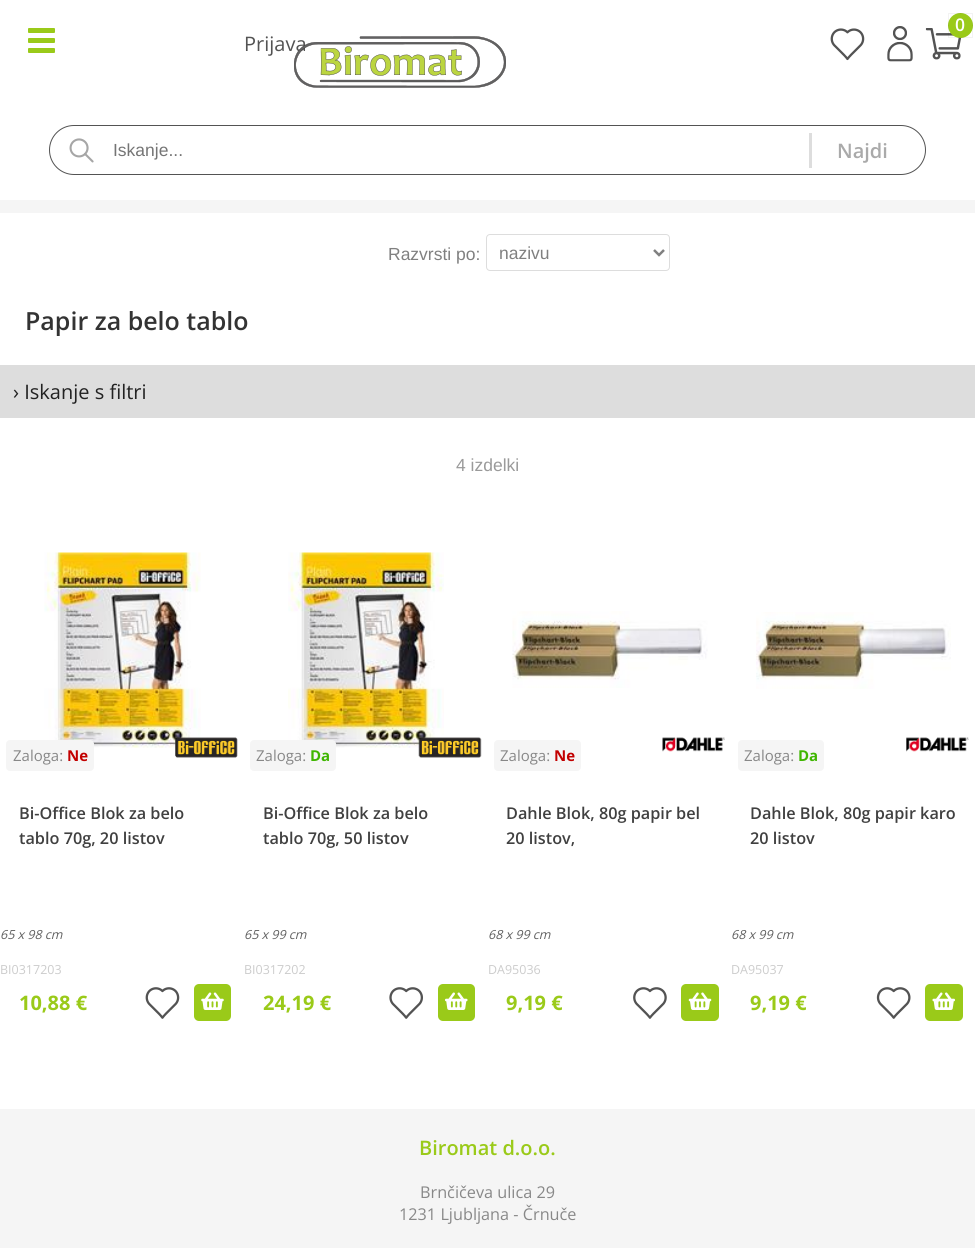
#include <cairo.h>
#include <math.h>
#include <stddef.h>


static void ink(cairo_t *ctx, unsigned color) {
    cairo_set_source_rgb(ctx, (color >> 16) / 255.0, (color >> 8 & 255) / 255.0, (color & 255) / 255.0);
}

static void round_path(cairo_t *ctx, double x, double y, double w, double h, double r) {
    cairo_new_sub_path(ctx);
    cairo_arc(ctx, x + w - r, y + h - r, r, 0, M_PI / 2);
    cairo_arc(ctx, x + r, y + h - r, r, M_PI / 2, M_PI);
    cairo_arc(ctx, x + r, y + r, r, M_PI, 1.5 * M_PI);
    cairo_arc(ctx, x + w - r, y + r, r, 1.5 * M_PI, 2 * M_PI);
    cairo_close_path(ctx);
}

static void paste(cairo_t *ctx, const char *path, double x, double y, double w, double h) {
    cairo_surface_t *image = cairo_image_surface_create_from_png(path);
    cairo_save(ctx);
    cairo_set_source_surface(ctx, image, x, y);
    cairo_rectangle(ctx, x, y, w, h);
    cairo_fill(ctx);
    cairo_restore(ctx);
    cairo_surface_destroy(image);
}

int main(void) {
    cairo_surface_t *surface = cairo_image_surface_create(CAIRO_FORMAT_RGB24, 975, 1248);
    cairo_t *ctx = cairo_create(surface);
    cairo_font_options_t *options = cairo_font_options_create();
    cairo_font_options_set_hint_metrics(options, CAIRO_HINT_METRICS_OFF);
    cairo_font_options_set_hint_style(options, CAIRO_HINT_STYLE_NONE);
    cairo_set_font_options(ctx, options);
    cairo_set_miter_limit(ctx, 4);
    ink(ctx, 0xFFFFFF);
    cairo_paint(ctx);
    ink(ctx, 0xF5F5F5);
    cairo_rectangle(ctx, 0, 200, 975, 13);
    cairo_fill(ctx);
    ink(ctx, 0x9ACA19);
    round_path(ctx, 28, 28, 27, 5, 1);
    cairo_fill(ctx);
    round_path(ctx, 28, 38, 27, 5, 1);
    cairo_fill(ctx);
    round_path(ctx, 28, 48, 27, 5, 1);
    cairo_fill(ctx);
    paste(ctx, "media/1.png", 925, 28, 37, 32);
    cairo_arc(ctx, 960.5, 25.5, 12.5, 0, 2 * M_PI);
    cairo_fill(ctx);
    cairo_rectangle(ctx, 948.5, 13.5, 24, 24);
    cairo_set_source_rgba(ctx, 0, 0, 0, 0.05);
    cairo_set_line_width(ctx, 1);
    cairo_stroke(ctx);
    cairo_select_font_face(ctx, "Open Sans SemiBold", CAIRO_FONT_SLANT_NORMAL, CAIRO_FONT_WEIGHT_NORMAL);
    cairo_set_font_size(ctx, 17.5);
    ink(ctx, 0xFFFFFF);
    cairo_move_to(ctx, 955, 31);
    cairo_show_text(ctx, "0");
    paste(ctx, "media/2.png", 887, 26, 26, 36);
    cairo_select_font_face(ctx, "Open Sans", CAIRO_FONT_SLANT_NORMAL, CAIRO_FONT_WEIGHT_NORMAL);
    cairo_set_font_size(ctx, 20);
    ink(ctx, 0x535353);
    cairo_move_to(ctx, 244, 51);
    cairo_show_text(ctx, "Prijava");
    paste(ctx, "media/3.png", 830, 28, 35, 33);
    paste(ctx, "media/4.png", 294, 36, 212, 52);
    paste(ctx, "media/5.png", 69, 138, 25, 25);
    round_path(ctx, 49.5, 125.5, 876, 49, 24.5);
    cairo_stroke(ctx);
    cairo_select_font_face(ctx, "Liberation Sans", CAIRO_FONT_SLANT_NORMAL, CAIRO_FONT_WEIGHT_NORMAL);
    cairo_set_font_size(ctx, 17.5);
    ink(ctx, 0x757575);
    cairo_move_to(ctx, 113, 156);
    cairo_show_text(ctx, "Iskanje...");
    ink(ctx, 0xDDDDDD);
    cairo_rectangle(ctx, 809, 133, 3, 35);
    cairo_fill(ctx);
    cairo_select_font_face(ctx, "Open Sans SemiBold", CAIRO_FONT_SLANT_NORMAL, CAIRO_FONT_WEIGHT_NORMAL);
    cairo_set_font_size(ctx, 20);
    ink(ctx, 0xAAAAAA);
    cairo_move_to(ctx, 837, 158);
    cairo_show_text(ctx, "Najdi");
    cairo_select_font_face(ctx, "Liberation Sans", CAIRO_FONT_SLANT_NORMAL, CAIRO_FONT_WEIGHT_NORMAL);
    cairo_set_font_size(ctx, 17.5);
    ink(ctx, 0x808080);
    cairo_move_to(ctx, 388, 260);
    cairo_show_text(ctx, "Razvrsti po:");
    round_path(ctx, 486.5, 234.5, 183, 36, 3.5);
    ink(ctx, 0xDDDDDD);
    cairo_stroke(ctx);
    cairo_new_path(ctx);
    cairo_move_to(ctx, 654, 250);
    cairo_line_to(ctx, 659, 255);
    cairo_line_to(ctx, 664, 250);
    ink(ctx, 0x808080);
    cairo_set_line_width(ctx, 2.5);
    cairo_stroke(ctx);
    cairo_move_to(ctx, 499, 259);
    cairo_show_text(ctx, "nazivu");
    cairo_select_font_face(ctx, "Open Sans SemiBold", CAIRO_FONT_SLANT_NORMAL, CAIRO_FONT_WEIGHT_NORMAL);
    cairo_set_font_size(ctx, 25);
    ink(ctx, 0x333333);
    cairo_move_to(ctx, 25, 330);
    cairo_show_text(ctx, "Papir za belo tablo");
    ink(ctx, 0xDDDDDD);
    cairo_rectangle(ctx, 0, 365, 975, 53);
    cairo_fill(ctx);
    cairo_select_font_face(ctx, "Open Sans", CAIRO_FONT_SLANT_NORMAL, CAIRO_FONT_WEIGHT_NORMAL);
    cairo_set_font_size(ctx, 20);
    ink(ctx, 0x222222);
    cairo_move_to(ctx, 13, 399);
    cairo_show_text(ctx, "› Iskanje s filtri");
    cairo_select_font_face(ctx, "Liberation Sans", CAIRO_FONT_SLANT_NORMAL, CAIRO_FONT_WEIGHT_NORMAL);
    cairo_set_font_size(ctx, 17.5);
    ink(ctx, 0x9A9A9A);
    cairo_move_to(ctx, 456, 471);
    cairo_show_text(ctx, "4 izdelki");
    paste(ctx, "media/6.png", 44, 552, 157, 196);
    ink(ctx, 0xF5F5F5);
    round_path(ctx, 6, 740, 88, 31, 4);
    cairo_fill(ctx);
    cairo_select_font_face(ctx, "Open Sans", CAIRO_FONT_SLANT_NORMAL, CAIRO_FONT_WEIGHT_NORMAL);
    cairo_set_font_size(ctx, 15);
    ink(ctx, 0x888888);
    cairo_move_to(ctx, 13, 761);
    cairo_show_text(ctx, "Zaloga:");
    cairo_select_font_face(ctx, "Open Sans", CAIRO_FONT_SLANT_NORMAL, CAIRO_FONT_WEIGHT_BOLD);
    ink(ctx, 0xC20000);
    cairo_move_to(ctx, 67, 761);
    cairo_show_text(ctx, "Ne");
    cairo_select_font_face(ctx, "Open Sans SemiBold", CAIRO_FONT_SLANT_NORMAL, CAIRO_FONT_WEIGHT_NORMAL);
    cairo_set_font_size(ctx, 16.25);
    ink(ctx, 0x404040);
    cairo_move_to(ctx, 19, 819);
    cairo_show_text(ctx, "Bi-Office Blok za belo");
    cairo_move_to(ctx, 19, 844);
    cairo_show_text(ctx, "tablo 70g, 20 listov");
    cairo_select_font_face(ctx, "Open Sans", CAIRO_FONT_SLANT_ITALIC, CAIRO_FONT_WEIGHT_NORMAL);
    cairo_set_font_size(ctx, 12.5);
    ink(ctx, 0x606060);
    cairo_move_to(ctx, 0, 939);
    cairo_show_text(ctx, "65 x 98 cm");
    cairo_select_font_face(ctx, "Open Sans", CAIRO_FONT_SLANT_NORMAL, CAIRO_FONT_WEIGHT_NORMAL);
    ink(ctx, 0xCCCCCC);
    cairo_move_to(ctx, 0, 974);
    cairo_show_text(ctx, "BI0317203");
    paste(ctx, "media/7.png", 175, 737, 63, 21);
    cairo_select_font_face(ctx, "Open Sans", CAIRO_FONT_SLANT_NORMAL, CAIRO_FONT_WEIGHT_BOLD);
    cairo_set_font_size(ctx, 20);
    ink(ctx, 0x9ACA19);
    cairo_move_to(ctx, 19, 1010);
    cairo_show_text(ctx, "10,88 €");
    paste(ctx, "media/8.png", 145, 987, 35, 32);
    round_path(ctx, 194, 984, 37, 37, 5);
    cairo_fill(ctx);
    paste(ctx, "media/9.png", 201, 992, 23, 18);
    paste(ctx, "media/10.png", 288, 552, 156, 196);
    ink(ctx, 0xF5F5F5);
    round_path(ctx, 250, 740, 86, 31, 4);
    cairo_fill(ctx);
    cairo_select_font_face(ctx, "Open Sans", CAIRO_FONT_SLANT_NORMAL, CAIRO_FONT_WEIGHT_NORMAL);
    cairo_set_font_size(ctx, 15);
    ink(ctx, 0x888888);
    cairo_move_to(ctx, 256, 761);
    cairo_show_text(ctx, "Zaloga:");
    cairo_select_font_face(ctx, "Open Sans", CAIRO_FONT_SLANT_NORMAL, CAIRO_FONT_WEIGHT_BOLD);
    ink(ctx, 0x3FB600);
    cairo_move_to(ctx, 310, 761);
    cairo_show_text(ctx, "Da");
    cairo_select_font_face(ctx, "Open Sans SemiBold", CAIRO_FONT_SLANT_NORMAL, CAIRO_FONT_WEIGHT_NORMAL);
    cairo_set_font_size(ctx, 16.25);
    ink(ctx, 0x404040);
    cairo_move_to(ctx, 263, 819);
    cairo_show_text(ctx, "Bi-Office Blok za belo");
    cairo_move_to(ctx, 263, 844);
    cairo_show_text(ctx, "tablo 70g, 50 listov");
    cairo_select_font_face(ctx, "Open Sans", CAIRO_FONT_SLANT_ITALIC, CAIRO_FONT_WEIGHT_NORMAL);
    cairo_set_font_size(ctx, 12.5);
    ink(ctx, 0x606060);
    cairo_move_to(ctx, 244, 939);
    cairo_show_text(ctx, "65 x 99 cm");
    cairo_select_font_face(ctx, "Open Sans", CAIRO_FONT_SLANT_NORMAL, CAIRO_FONT_WEIGHT_NORMAL);
    ink(ctx, 0xCCCCCC);
    cairo_move_to(ctx, 244, 974);
    cairo_show_text(ctx, "BI0317202");
    paste(ctx, "media/11.png", 418, 737, 64, 21);
    cairo_select_font_face(ctx, "Open Sans", CAIRO_FONT_SLANT_NORMAL, CAIRO_FONT_WEIGHT_BOLD);
    cairo_set_font_size(ctx, 20);
    ink(ctx, 0x9ACA19);
    cairo_move_to(ctx, 263, 1010);
    cairo_show_text(ctx, "24,19 €");
    paste(ctx, "media/12.png", 389, 987, 34, 32);
    round_path(ctx, 438, 984, 37, 37, 5);
    cairo_fill(ctx);
    paste(ctx, "media/13.png", 445, 992, 23, 18);
    paste(ctx, "media/14.png", 662, 737, 63, 15);
    paste(ctx, "media/15.png", 512, 611, 196, 77);
    ink(ctx, 0xF5F5F5);
    round_path(ctx, 494, 740, 87, 31, 4);
    cairo_fill(ctx);
    cairo_select_font_face(ctx, "Open Sans", CAIRO_FONT_SLANT_NORMAL, CAIRO_FONT_WEIGHT_NORMAL);
    cairo_set_font_size(ctx, 15);
    ink(ctx, 0x888888);
    cairo_move_to(ctx, 500, 761);
    cairo_show_text(ctx, "Zaloga:");
    cairo_select_font_face(ctx, "Open Sans", CAIRO_FONT_SLANT_NORMAL, CAIRO_FONT_WEIGHT_BOLD);
    ink(ctx, 0xC20000);
    cairo_move_to(ctx, 554, 761);
    cairo_show_text(ctx, "Ne");
    cairo_select_font_face(ctx, "Open Sans SemiBold", CAIRO_FONT_SLANT_NORMAL, CAIRO_FONT_WEIGHT_NORMAL);
    cairo_set_font_size(ctx, 16.25);
    ink(ctx, 0x404040);
    cairo_move_to(ctx, 506, 819);
    cairo_show_text(ctx, "Dahle Blok, 80g papir bel");
    cairo_move_to(ctx, 506, 844);
    cairo_show_text(ctx, "20 listov,");
    cairo_select_font_face(ctx, "Open Sans", CAIRO_FONT_SLANT_ITALIC, CAIRO_FONT_WEIGHT_NORMAL);
    cairo_set_font_size(ctx, 12.5);
    ink(ctx, 0x606060);
    cairo_move_to(ctx, 488, 939);
    cairo_show_text(ctx, "68 x 99 cm");
    cairo_select_font_face(ctx, "Open Sans", CAIRO_FONT_SLANT_NORMAL, CAIRO_FONT_WEIGHT_NORMAL);
    ink(ctx, 0xCCCCCC);
    cairo_move_to(ctx, 488, 974);
    cairo_show_text(ctx, "DA95036");
    cairo_select_font_face(ctx, "Open Sans", CAIRO_FONT_SLANT_NORMAL, CAIRO_FONT_WEIGHT_BOLD);
    cairo_set_font_size(ctx, 20);
    ink(ctx, 0x9ACA19);
    cairo_move_to(ctx, 506, 1010);
    cairo_show_text(ctx, "9,19 €");
    paste(ctx, "media/16.png", 633, 987, 34, 32);
    round_path(ctx, 681, 984, 38, 37, 5);
    cairo_fill(ctx);
    paste(ctx, "media/17.png", 688, 992, 24, 18);
    paste(ctx, "media/18.png", 906, 737, 63, 15);
    paste(ctx, "media/19.png", 756, 612, 195, 77);
    ink(ctx, 0xF5F5F5);
    round_path(ctx, 738, 740, 86, 31, 4);
    cairo_fill(ctx);
    cairo_select_font_face(ctx, "Open Sans", CAIRO_FONT_SLANT_NORMAL, CAIRO_FONT_WEIGHT_NORMAL);
    cairo_set_font_size(ctx, 15);
    ink(ctx, 0x888888);
    cairo_move_to(ctx, 744, 761);
    cairo_show_text(ctx, "Zaloga:");
    cairo_select_font_face(ctx, "Open Sans", CAIRO_FONT_SLANT_NORMAL, CAIRO_FONT_WEIGHT_BOLD);
    ink(ctx, 0x3FB600);
    cairo_move_to(ctx, 798, 761);
    cairo_show_text(ctx, "Da");
    cairo_select_font_face(ctx, "Open Sans SemiBold", CAIRO_FONT_SLANT_NORMAL, CAIRO_FONT_WEIGHT_NORMAL);
    cairo_set_font_size(ctx, 16.25);
    ink(ctx, 0x404040);
    cairo_move_to(ctx, 750, 819);
    cairo_show_text(ctx, "Dahle Blok, 80g papir karo");
    cairo_move_to(ctx, 750, 844);
    cairo_show_text(ctx, "20 listov");
    cairo_select_font_face(ctx, "Open Sans", CAIRO_FONT_SLANT_ITALIC, CAIRO_FONT_WEIGHT_NORMAL);
    cairo_set_font_size(ctx, 12.5);
    ink(ctx, 0x606060);
    cairo_move_to(ctx, 731, 939);
    cairo_show_text(ctx, "68 x 99 cm");
    cairo_select_font_face(ctx, "Open Sans", CAIRO_FONT_SLANT_NORMAL, CAIRO_FONT_WEIGHT_NORMAL);
    ink(ctx, 0xCCCCCC);
    cairo_move_to(ctx, 731, 974);
    cairo_show_text(ctx, "DA95037");
    cairo_select_font_face(ctx, "Open Sans", CAIRO_FONT_SLANT_NORMAL, CAIRO_FONT_WEIGHT_BOLD);
    cairo_set_font_size(ctx, 20);
    ink(ctx, 0x9ACA19);
    cairo_move_to(ctx, 750, 1010);
    cairo_show_text(ctx, "9,19 €");
    paste(ctx, "media/20.png", 876, 987, 35, 32);
    round_path(ctx, 925, 984, 38, 37, 5);
    cairo_fill(ctx);
    paste(ctx, "media/21.png", 932, 992, 23, 18);
    ink(ctx, 0xF5F5F5);
    cairo_rectangle(ctx, 0, 1109, 975, 139);
    cairo_fill(ctx);
    cairo_select_font_face(ctx, "Open Sans SemiBold", CAIRO_FONT_SLANT_NORMAL, CAIRO_FONT_WEIGHT_NORMAL);
    ink(ctx, 0x9ACA19);
    cairo_move_to(ctx, 419, 1155);
    cairo_show_text(ctx, "Biromat d.o.o.");
    cairo_select_font_face(ctx, "Open Sans", CAIRO_FONT_SLANT_NORMAL, CAIRO_FONT_WEIGHT_NORMAL);
    cairo_set_font_size(ctx, 16.25);
    ink(ctx, 0x888888);
    cairo_move_to(ctx, 420, 1198);
    cairo_show_text(ctx, "Brnčičeva ulica 29");
    cairo_move_to(ctx, 399, 1220);
    cairo_show_text(ctx, "1231 Ljubljana - Črnuče");
    cairo_surface_write_to_png(surface, "image.png");
    cairo_font_options_destroy(options);
    cairo_destroy(ctx);
    cairo_surface_destroy(surface);
    return 0;
}
